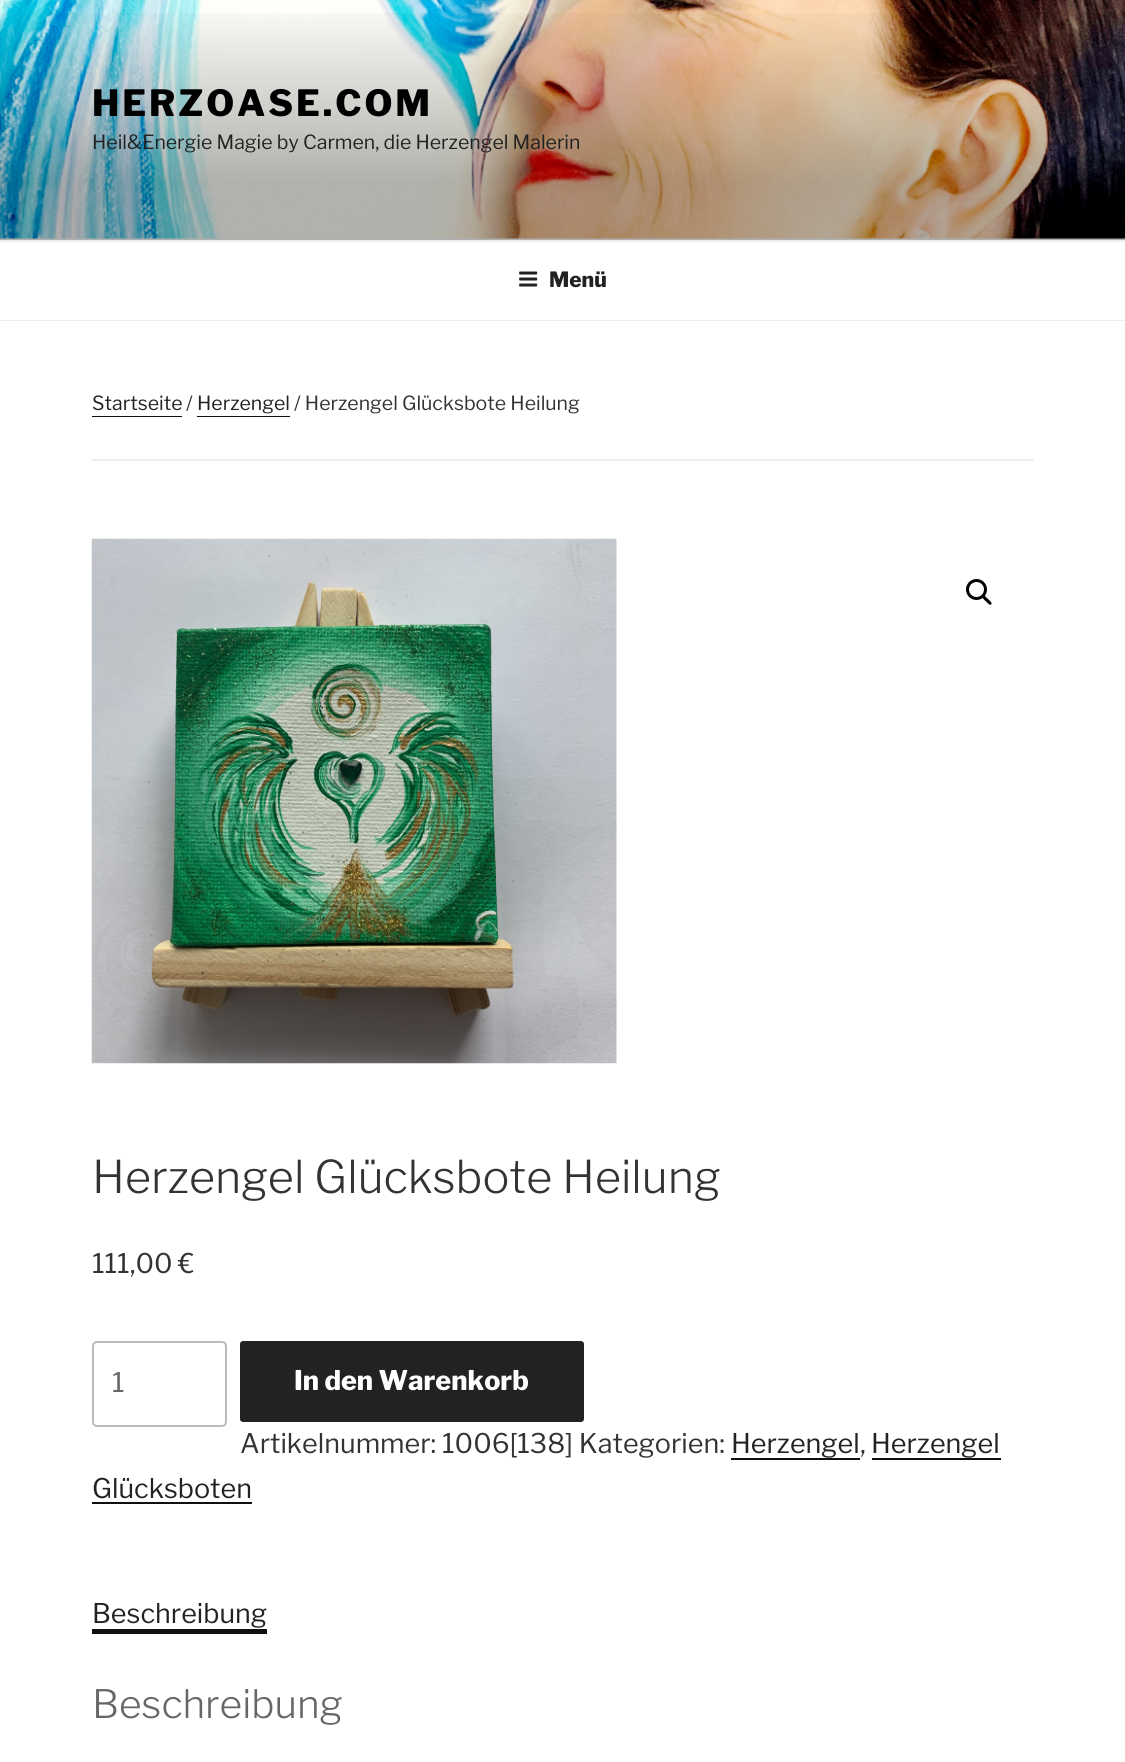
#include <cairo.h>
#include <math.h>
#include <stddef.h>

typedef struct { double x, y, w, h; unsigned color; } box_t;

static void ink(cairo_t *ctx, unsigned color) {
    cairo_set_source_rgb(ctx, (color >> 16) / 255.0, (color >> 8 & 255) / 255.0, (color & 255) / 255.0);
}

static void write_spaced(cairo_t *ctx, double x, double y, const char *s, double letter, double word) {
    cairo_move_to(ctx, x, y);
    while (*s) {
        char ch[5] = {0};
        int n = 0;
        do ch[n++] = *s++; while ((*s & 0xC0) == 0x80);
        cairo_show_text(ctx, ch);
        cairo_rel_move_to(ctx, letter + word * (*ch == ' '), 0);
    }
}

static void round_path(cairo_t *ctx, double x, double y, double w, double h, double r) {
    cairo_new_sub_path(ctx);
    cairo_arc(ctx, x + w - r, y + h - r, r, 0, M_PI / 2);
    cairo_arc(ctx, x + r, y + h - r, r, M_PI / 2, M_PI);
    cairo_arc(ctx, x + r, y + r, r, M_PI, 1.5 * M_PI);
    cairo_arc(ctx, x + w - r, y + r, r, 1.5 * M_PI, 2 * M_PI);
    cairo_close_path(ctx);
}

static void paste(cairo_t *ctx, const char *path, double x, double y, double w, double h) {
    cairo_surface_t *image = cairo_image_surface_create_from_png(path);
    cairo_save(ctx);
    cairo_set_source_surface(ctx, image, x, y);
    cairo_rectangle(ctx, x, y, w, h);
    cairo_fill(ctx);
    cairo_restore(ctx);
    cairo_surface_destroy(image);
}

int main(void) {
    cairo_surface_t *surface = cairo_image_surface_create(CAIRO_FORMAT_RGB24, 1125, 1762);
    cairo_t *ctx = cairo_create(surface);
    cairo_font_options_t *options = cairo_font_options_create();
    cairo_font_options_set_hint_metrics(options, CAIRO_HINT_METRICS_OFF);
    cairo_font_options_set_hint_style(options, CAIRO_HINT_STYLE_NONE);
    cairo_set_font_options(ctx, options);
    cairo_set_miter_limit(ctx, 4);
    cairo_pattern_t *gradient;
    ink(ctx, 0xFAFAFA);
    cairo_paint(ctx);
    paste(ctx, "media/1.png", 0, 0, 1125, 239);
    gradient = cairo_pattern_create_linear(563, 0, 563, 240);
    cairo_pattern_add_color_stop_rgba(gradient, 0, 0, 0, 0, 0);
    cairo_pattern_add_color_stop_rgba(gradient, 0.75, 0, 0, 0, 0.3);
    cairo_pattern_add_color_stop_rgba(gradient, 1, 0, 0, 0, 0.3);
    cairo_set_source(ctx, gradient);
    cairo_pattern_destroy(gradient);
    cairo_rectangle(ctx, 0, 13, 1125, 227);
    cairo_fill(ctx);
    cairo_select_font_face(ctx, "Libre Franklin Thin", CAIRO_FONT_SLANT_NORMAL, CAIRO_FONT_WEIGHT_NORMAL);
    cairo_set_font_size(ctx, 36);
    ink(ctx, 0x000000);
    write_spaced(ctx, 92, 116, "HERZOASE.COM", 2.9, 0);
    cairo_select_font_face(ctx, "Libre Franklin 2 Thin", CAIRO_FONT_SLANT_NORMAL, CAIRO_FONT_WEIGHT_NORMAL);
    cairo_set_font_size(ctx, 19.5);
    ink(ctx, 0x222222);
    cairo_move_to(ctx, 92, 149);
    cairo_show_text(ctx, "Heil&Energie Magie by Carmen, die Herzengel Malerin");
    {
        static const box_t items[] = {
            {0, 242, 1125, 78, 0xFFFFFF},
            {0, 240, 1125, 2, 0xEEEEEE},
            {0, 320, 1125, 1, 0xEEEEEE},
        };
        for (size_t i = 0; i < sizeof items / sizeof *items; i++) {
            ink(ctx, items[i].color);
            cairo_rectangle(ctx, items[i].x, items[i].y, items[i].w, items[i].h);
            cairo_fill(ctx);
        }
    }
    paste(ctx, "media/2.png", 519, 271, 19, 16);
    cairo_select_font_face(ctx, "Libre Franklin Thin", CAIRO_FONT_SLANT_NORMAL, CAIRO_FONT_WEIGHT_NORMAL);
    cairo_set_font_size(ctx, 21);
    ink(ctx, 0x222222);
    cairo_move_to(ctx, 549, 287);
    cairo_show_text(ctx, "Menü");
    ink(ctx, 0xFFFFFF);
    cairo_rectangle(ctx, 0, 321, 1125, 1441);
    cairo_fill(ctx);
    ink(ctx, 0xEEEEEE);
    cairo_rectangle(ctx, 92, 459, 942, 2);
    cairo_fill(ctx);
    cairo_select_font_face(ctx, "Libre Franklin 2 Thin", CAIRO_FONT_SLANT_NORMAL, CAIRO_FONT_WEIGHT_NORMAL);
    cairo_set_font_size(ctx, 19.5);
    ink(ctx, 0x222222);
    cairo_move_to(ctx, 92, 410);
    cairo_show_text(ctx, "Startseite");
    ink(ctx, 0x0F0F0F);
    cairo_new_path(ctx);
    cairo_move_to(ctx, 92, 416);
    cairo_line_to(ctx, 92, 417);
    cairo_line_to(ctx, 182, 417);
    cairo_line_to(ctx, 182, 393);
    cairo_line_to(ctx, 182, 416);
    cairo_close_path(ctx);
    cairo_fill(ctx);
    ink(ctx, 0x333333);
    cairo_move_to(ctx, 186, 410);
    cairo_show_text(ctx, "/");
    ink(ctx, 0x222222);
    cairo_move_to(ctx, 197, 410);
    cairo_show_text(ctx, "Herzengel");
    ink(ctx, 0x0F0F0F);
    cairo_new_path(ctx);
    cairo_move_to(ctx, 197, 416);
    cairo_line_to(ctx, 197, 417);
    cairo_line_to(ctx, 290, 417);
    cairo_line_to(ctx, 290, 393);
    cairo_line_to(ctx, 290, 416);
    cairo_close_path(ctx);
    cairo_fill(ctx);
    ink(ctx, 0x333333);
    cairo_move_to(ctx, 294, 410);
    cairo_show_text(ctx, "/ Herzengel Glücksbote Heilung");
    paste(ctx, "media/3.png", 91, 538, 526, 526);
    cairo_arc(ctx, 976.5, 589.5, 9, 0, 2 * M_PI);
    ink(ctx, 0x000000);
    cairo_set_line_width(ctx, 3);
    cairo_stroke(ctx);
    cairo_new_path(ctx);
    cairo_move_to(ctx, 983, 596);
    cairo_curve_to(ctx, 984.5, 594.5, 987, 598.5, 988, 599);
    cairo_curve_to(ctx, 989, 600, 993, 603, 991, 604.5);
    cairo_curve_to(ctx, 989.5, 606, 987, 602, 986, 601.5);
    cairo_curve_to(ctx, 985, 600.5, 981, 597.5, 983, 596);
    cairo_close_path(ctx);
    cairo_fill(ctx);
    cairo_select_font_face(ctx, "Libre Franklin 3 Thin", CAIRO_FONT_SLANT_NORMAL, CAIRO_FONT_WEIGHT_NORMAL);
    cairo_set_font_size(ctx, 45);
    ink(ctx, 0x333333);
    cairo_move_to(ctx, 92, 1193);
    cairo_show_text(ctx, "Herzengel Glücksbote Heilung");
    cairo_select_font_face(ctx, "Libre Franklin 2 Thin", CAIRO_FONT_SLANT_NORMAL, CAIRO_FONT_WEIGHT_NORMAL);
    cairo_set_font_size(ctx, 27);
    cairo_move_to(ctx, 92, 1273);
    cairo_show_text(ctx, "111,00 €");
    round_path(ctx, 93, 1342, 133, 84, 4);
    ink(ctx, 0xBBBBBB);
    cairo_set_line_width(ctx, 2);
    cairo_stroke(ctx);
    ink(ctx, 0x666666);
    cairo_move_to(ctx, 112, 1392);
    cairo_show_text(ctx, "1");
    ink(ctx, 0x222222);
    round_path(ctx, 240, 1341, 344, 81, 3);
    cairo_fill(ctx);
    cairo_select_font_face(ctx, "Libre Franklin Thin", CAIRO_FONT_SLANT_NORMAL, CAIRO_FONT_WEIGHT_NORMAL);
    ink(ctx, 0xFFFFFF);
    cairo_move_to(ctx, 294, 1390);
    cairo_show_text(ctx, "In den Warenkorb");
    cairo_select_font_face(ctx, "Libre Franklin 2 Thin", CAIRO_FONT_SLANT_NORMAL, CAIRO_FONT_WEIGHT_NORMAL);
    ink(ctx, 0x333333);
    cairo_move_to(ctx, 240, 1453);
    cairo_show_text(ctx, "Artikelnummer: 1006[138] Kategorien:");
    ink(ctx, 0x222222);
    cairo_move_to(ctx, 731, 1453);
    cairo_show_text(ctx, "Herzengel");
    ink(ctx, 0x333333);
    cairo_move_to(ctx, 860, 1453);
    cairo_show_text(ctx, ",");
    ink(ctx, 0x0F0F0F);
    cairo_rectangle(ctx, 731, 1458, 129, 2);
    cairo_fill(ctx);
    cairo_rectangle(ctx, 872, 1458, 129, 2);
    cairo_fill(ctx);
    ink(ctx, 0x222222);
    cairo_move_to(ctx, 871, 1453);
    cairo_show_text(ctx, "Herzengel");
    cairo_move_to(ctx, 92, 1498);
    cairo_show_text(ctx, "Glücksboten");
    ink(ctx, 0x0F0F0F);
    cairo_rectangle(ctx, 92, 1502, 160, 2);
    cairo_fill(ctx);
    ink(ctx, 0x222222);
    cairo_move_to(ctx, 92, 1623);
    cairo_show_text(ctx, "Beschreibung");
    ink(ctx, 0x0F0F0F);
    cairo_rectangle(ctx, 92, 1629, 175, 5);
    cairo_fill(ctx);
    cairo_select_font_face(ctx, "Libre Franklin 3 Thin", CAIRO_FONT_SLANT_NORMAL, CAIRO_FONT_WEIGHT_NORMAL);
    cairo_set_font_size(ctx, 39);
    ink(ctx, 0x666666);
    cairo_move_to(ctx, 92, 1718);
    cairo_show_text(ctx, "Beschreibung");
    cairo_surface_write_to_png(surface, "image.png");
    cairo_font_options_destroy(options);
    cairo_destroy(ctx);
    cairo_surface_destroy(surface);
    return 0;
}
